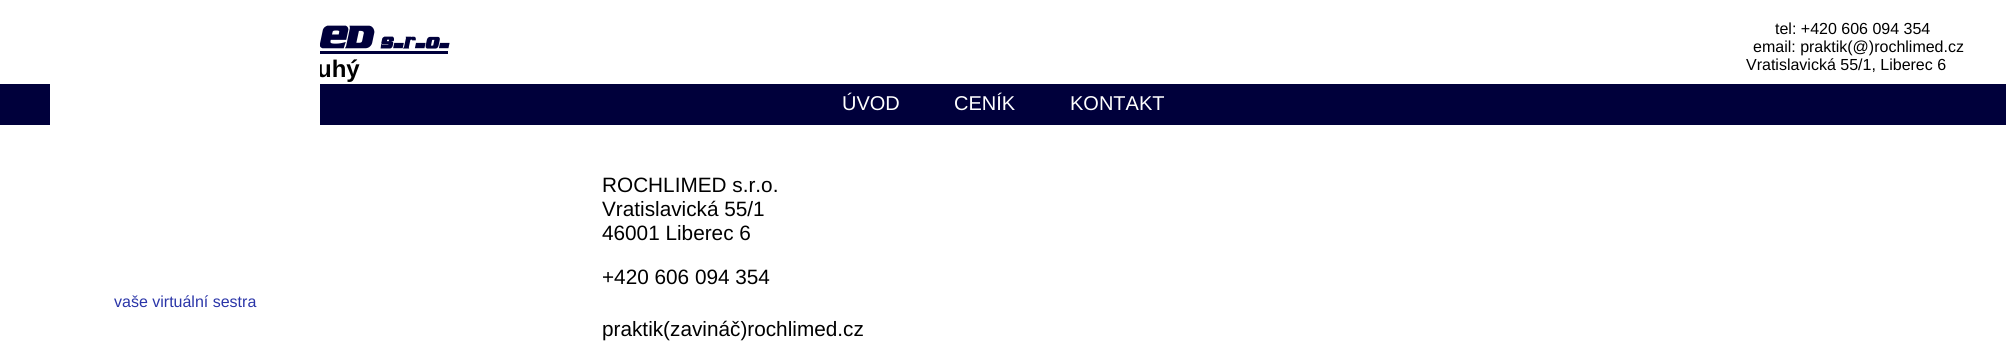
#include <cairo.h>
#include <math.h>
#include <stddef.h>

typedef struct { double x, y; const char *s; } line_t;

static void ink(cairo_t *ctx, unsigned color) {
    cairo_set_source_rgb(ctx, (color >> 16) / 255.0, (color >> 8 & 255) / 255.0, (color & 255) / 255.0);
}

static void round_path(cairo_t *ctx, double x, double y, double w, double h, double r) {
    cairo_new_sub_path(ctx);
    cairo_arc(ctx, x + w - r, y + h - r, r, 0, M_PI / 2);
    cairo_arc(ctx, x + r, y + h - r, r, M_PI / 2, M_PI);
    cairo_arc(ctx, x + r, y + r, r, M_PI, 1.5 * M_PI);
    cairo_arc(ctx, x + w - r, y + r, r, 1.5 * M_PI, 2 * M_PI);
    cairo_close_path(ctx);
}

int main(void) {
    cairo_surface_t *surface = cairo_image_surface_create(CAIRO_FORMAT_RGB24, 2006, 361);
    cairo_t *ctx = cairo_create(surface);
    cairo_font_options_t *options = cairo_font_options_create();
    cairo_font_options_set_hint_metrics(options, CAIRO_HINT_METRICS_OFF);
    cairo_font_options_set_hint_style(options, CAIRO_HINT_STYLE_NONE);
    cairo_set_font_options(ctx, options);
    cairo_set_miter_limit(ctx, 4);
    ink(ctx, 0xFFFFFF);
    cairo_paint(ctx);
    cairo_select_font_face(ctx, "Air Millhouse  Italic", CAIRO_FONT_SLANT_NORMAL, CAIRO_FONT_WEIGHT_BOLD);
    cairo_set_font_size(ctx, 32);
    ink(ctx, 0x00003B);
    cairo_move_to(ctx, 318, 49);
    cairo_show_text(ctx, "ED s.r.o.");
    cairo_rectangle(ctx, 320, 51, 128, 3);
    cairo_fill(ctx);
    cairo_select_font_face(ctx, "Liberation Sans", CAIRO_FONT_SLANT_NORMAL, CAIRO_FONT_WEIGHT_BOLD);
    cairo_set_font_size(ctx, 24);
    ink(ctx, 0x000000);
    cairo_move_to(ctx, 317, 77);
    cairo_show_text(ctx, "uhý");
    cairo_select_font_face(ctx, "Liberation Sans", CAIRO_FONT_SLANT_NORMAL, CAIRO_FONT_WEIGHT_NORMAL);
    cairo_set_font_size(ctx, 16);
    {
        static const line_t items[] = {
            {1775, 34, "tel: +420 606 094 354"},
            {1753, 52, "email: praktik(@)rochlimed.cz"},
            {1746, 70, "Vratislavická 55/1, Liberec 6"},
        };
        for (size_t i = 0; i < sizeof items / sizeof *items; i++) {
            cairo_move_to(ctx, items[i].x, items[i].y);
            cairo_show_text(ctx, items[i].s);
        }
    }
    ink(ctx, 0x00003B);
    cairo_rectangle(ctx, 0, 84, 2006, 41);
    cairo_fill(ctx);
    cairo_set_font_size(ctx, 20);
    ink(ctx, 0xFFFFFF);
    {
        static const line_t items[] = {
            {842, 110, "ÚVOD"},
            {954, 110, "CENÍK"},
            {1070, 110, "KONTAKT"},
        };
        for (size_t i = 0; i < sizeof items / sizeof *items; i++) {
            cairo_move_to(ctx, items[i].x, items[i].y);
            cairo_show_text(ctx, items[i].s);
        }
    }
    round_path(ctx, 50, 31, 270, 280, 15);
    cairo_fill(ctx);
    cairo_set_font_size(ctx, 16);
    ink(ctx, 0x2A35A8);
    cairo_move_to(ctx, 114, 307);
    cairo_show_text(ctx, "vaše virtuální sestra");
    cairo_set_font_size(ctx, 20.75);
    ink(ctx, 0x000000);
    {
        static const line_t items[] = {
            {602, 192, "ROCHLIMED s.r.o."},
            {602, 216, "Vratislavická 55/1"},
            {602, 240, "46001 Liberec 6"},
            {602, 284, "+420 606 094 354"},
            {602, 336, "praktik(zavináč)rochlimed.cz"},
        };
        for (size_t i = 0; i < sizeof items / sizeof *items; i++) {
            cairo_move_to(ctx, items[i].x, items[i].y);
            cairo_show_text(ctx, items[i].s);
        }
    }
    cairo_surface_write_to_png(surface, "image.png");
    cairo_font_options_destroy(options);
    cairo_destroy(ctx);
    cairo_surface_destroy(surface);
    return 0;
}
